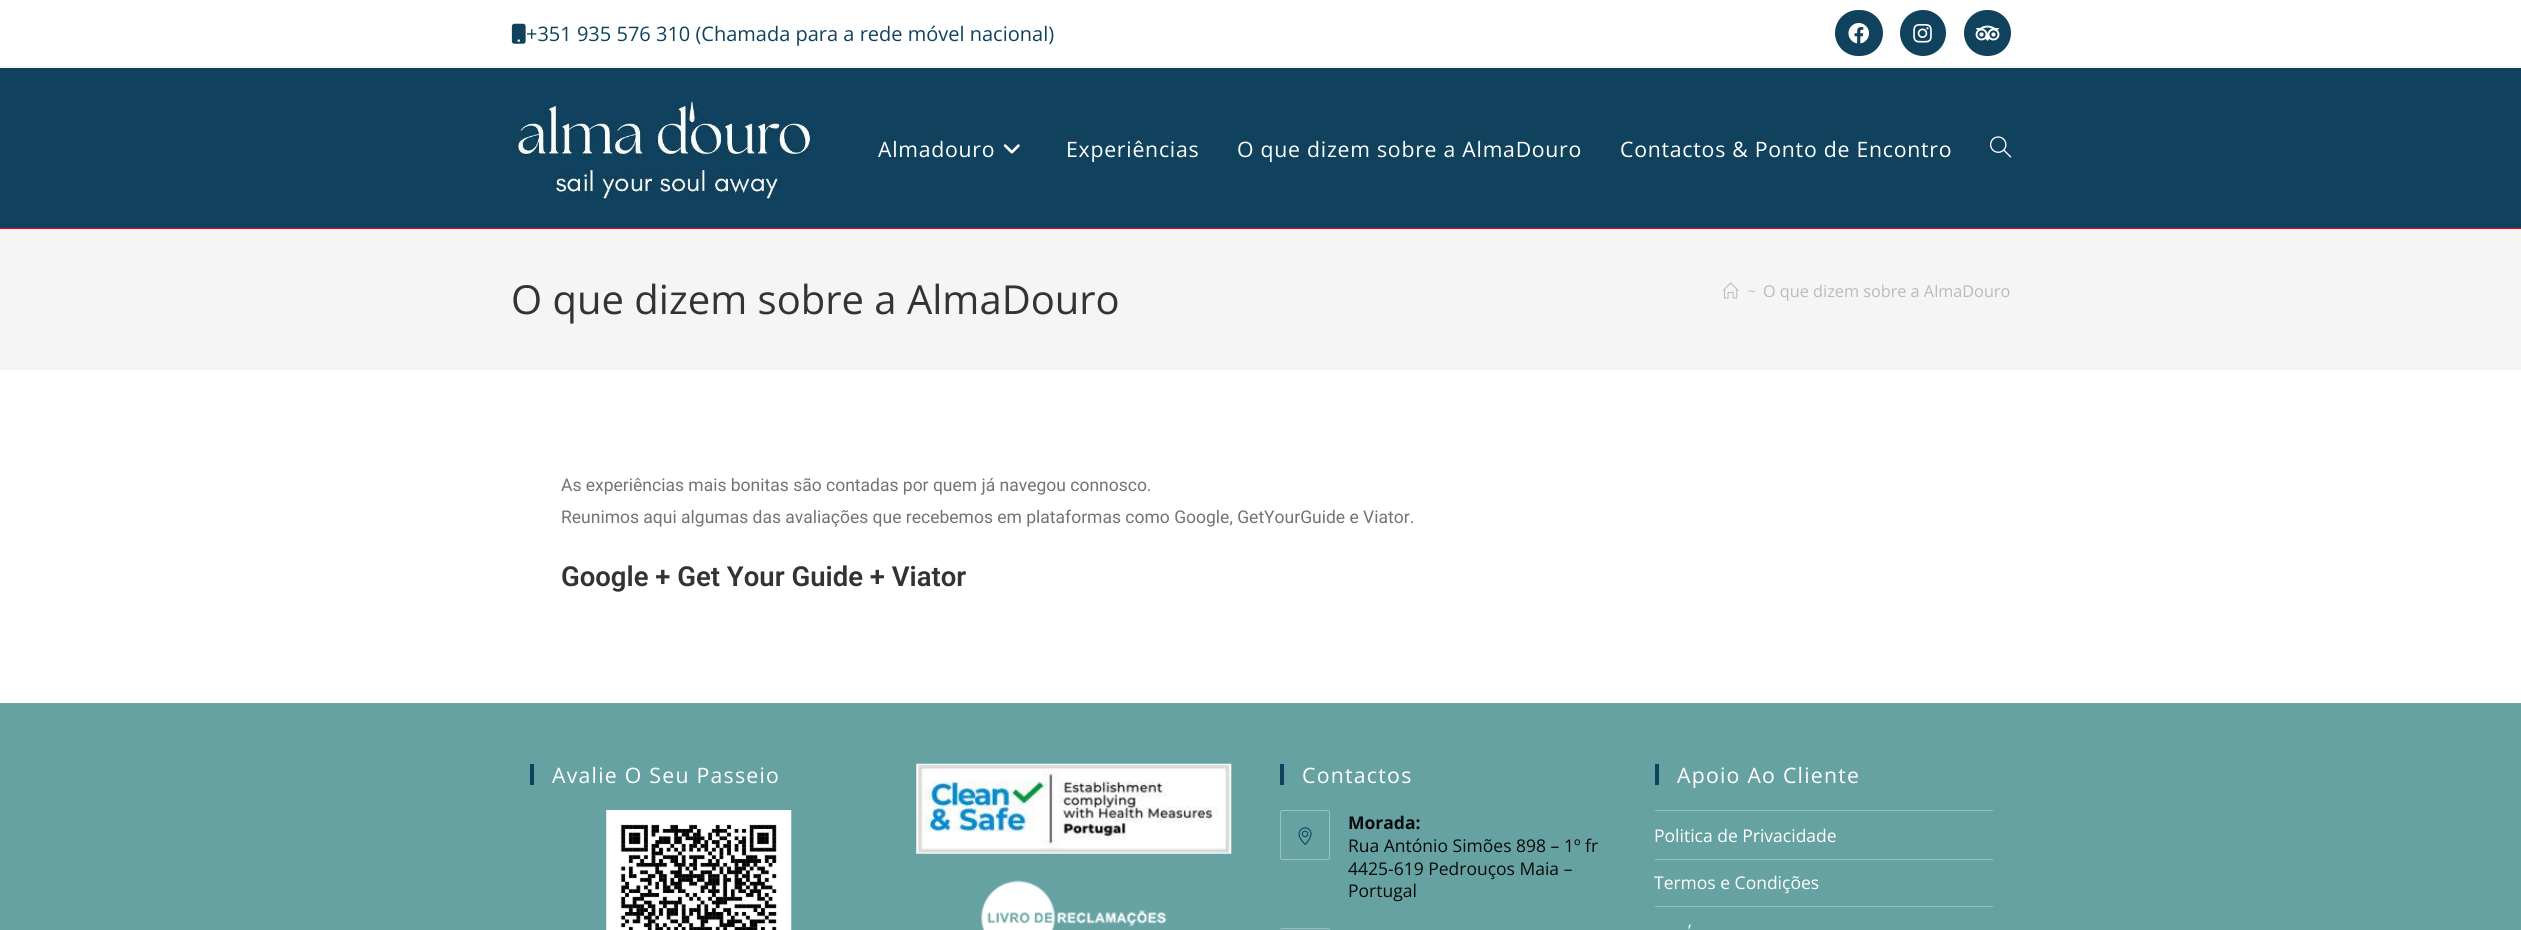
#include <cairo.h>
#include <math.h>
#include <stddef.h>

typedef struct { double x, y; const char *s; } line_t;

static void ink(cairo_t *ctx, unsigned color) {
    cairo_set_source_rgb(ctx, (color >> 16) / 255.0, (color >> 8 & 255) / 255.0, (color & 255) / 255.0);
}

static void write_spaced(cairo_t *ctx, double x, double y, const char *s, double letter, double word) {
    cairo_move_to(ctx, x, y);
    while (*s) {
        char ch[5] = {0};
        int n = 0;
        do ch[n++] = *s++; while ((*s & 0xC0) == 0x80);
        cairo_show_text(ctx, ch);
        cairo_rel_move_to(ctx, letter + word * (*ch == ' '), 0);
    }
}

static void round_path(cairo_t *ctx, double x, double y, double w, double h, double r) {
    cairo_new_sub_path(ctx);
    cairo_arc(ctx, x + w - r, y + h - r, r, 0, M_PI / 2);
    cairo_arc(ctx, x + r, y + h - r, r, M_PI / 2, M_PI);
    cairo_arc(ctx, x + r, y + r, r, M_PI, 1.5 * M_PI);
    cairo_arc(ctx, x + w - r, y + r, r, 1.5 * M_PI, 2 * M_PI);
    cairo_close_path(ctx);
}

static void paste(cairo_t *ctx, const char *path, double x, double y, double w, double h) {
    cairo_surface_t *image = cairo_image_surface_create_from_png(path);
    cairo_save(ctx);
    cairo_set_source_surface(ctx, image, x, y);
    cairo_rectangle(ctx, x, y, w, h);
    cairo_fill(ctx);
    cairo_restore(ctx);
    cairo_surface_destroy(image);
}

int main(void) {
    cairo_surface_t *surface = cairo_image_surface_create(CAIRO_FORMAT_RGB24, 2521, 930);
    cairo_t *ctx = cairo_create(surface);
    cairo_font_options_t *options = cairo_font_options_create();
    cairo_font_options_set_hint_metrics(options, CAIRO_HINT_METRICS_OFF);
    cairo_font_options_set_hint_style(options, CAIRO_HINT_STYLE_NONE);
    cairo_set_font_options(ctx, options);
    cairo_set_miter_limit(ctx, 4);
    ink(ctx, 0xFFFFFF);
    cairo_paint(ctx);
    ink(ctx, 0xF1F1F1);
    cairo_rectangle(ctx, 0, 66, 2521, 1);
    cairo_fill(ctx);
    paste(ctx, "media/1.png", 511, 23, 15, 21);
    cairo_select_font_face(ctx, "Open Sans", CAIRO_FONT_SLANT_NORMAL, CAIRO_FONT_WEIGHT_NORMAL);
    cairo_set_font_size(ctx, 20);
    ink(ctx, 0x10415D);
    cairo_move_to(ctx, 526, 41);
    cairo_show_text(ctx, "+351 935 576 310 (Chamada para a rede móvel nacional)");
    round_path(ctx, 1835, 10, 48, 46, 23);
    cairo_fill(ctx);
    paste(ctx, "media/2.png", 1848, 23, 21, 21);
    cairo_arc(ctx, 1923, 33, 23, 0, 2 * M_PI);
    cairo_fill(ctx);
    paste(ctx, "media/3.png", 1913, 23, 19, 20);
    round_path(ctx, 1964, 10, 47, 46, 23);
    cairo_fill(ctx);
    paste(ctx, "media/4.png", 1975, 25, 25, 16);
    cairo_rectangle(ctx, 0, 68, 2521, 160);
    cairo_fill(ctx);
    ink(ctx, 0xFF0000);
    cairo_rectangle(ctx, 0, 228, 2521, 1);
    cairo_fill(ctx);
    paste(ctx, "media/5.png", 513, 94, 301, 106);
    cairo_set_font_size(ctx, 21.25);
    ink(ctx, 0xFFFFFF);
    write_spaced(ctx, 878, 157, "Almadouro", 0.75, 0);
    paste(ctx, "media/6.png", 1003, 144, 17, 10);
    {
        static const line_t items[] = {
            {1066, 157, "Experiências"},
            {1237, 157, "O que dizem sobre a AlmaDouro"},
            {1620, 157, "Contactos & Ponto de Encontro"},
        };
        for (size_t i = 0; i < sizeof items / sizeof *items; i++) {
            write_spaced(ctx, items[i].x, items[i].y, items[i].s, 0.75, 0);
        }
    }
    paste(ctx, "media/7.png", 1989, 136, 23, 22);
    ink(ctx, 0xF5F5F5);
    cairo_rectangle(ctx, 0, 229, 2521, 141);
    cairo_fill(ctx);
    cairo_set_font_size(ctx, 40);
    ink(ctx, 0x333333);
    cairo_move_to(ctx, 511, 314);
    cairo_show_text(ctx, "O que dizem sobre a AlmaDouro");
    paste(ctx, "media/8.png", 1723, 282, 16, 17);
    cairo_set_font_size(ctx, 16.25);
    ink(ctx, 0xC6C6C6);
    cairo_move_to(ctx, 1747, 297);
    cairo_show_text(ctx, "~");
    ink(ctx, 0xBABABA);
    cairo_move_to(ctx, 1763, 297);
    cairo_show_text(ctx, "O que dizem sobre a AlmaDouro");
    cairo_select_font_face(ctx, "Roboto", CAIRO_FONT_SLANT_NORMAL, CAIRO_FONT_WEIGHT_NORMAL);
    cairo_set_font_size(ctx, 17.5);
    ink(ctx, 0x747373);
    cairo_move_to(ctx, 561, 491);
    cairo_show_text(ctx, "As experiências mais bonitas são contadas por quem já navegou connosco.");
    cairo_move_to(ctx, 561, 523);
    cairo_show_text(ctx, "Reunimos aqui algumas das avaliações que recebemos em plataformas como Google, GetYourGuide e Viator.");
    cairo_select_font_face(ctx, "Roboto SemiBold", CAIRO_FONT_SLANT_NORMAL, CAIRO_FONT_WEIGHT_NORMAL);
    cairo_set_font_size(ctx, 27.5);
    ink(ctx, 0x333333);
    cairo_move_to(ctx, 561, 586);
    cairo_show_text(ctx, "Google + Get Your Guide + Viator");
    ink(ctx, 0x67A2A2);
    cairo_rectangle(ctx, 0, 703, 2521, 227);
    cairo_fill(ctx);
    ink(ctx, 0x10415D);
    cairo_rectangle(ctx, 530, 764, 4, 21);
    cairo_fill(ctx);
    cairo_select_font_face(ctx, "Open Sans", CAIRO_FONT_SLANT_NORMAL, CAIRO_FONT_WEIGHT_NORMAL);
    cairo_set_font_size(ctx, 21.25);
    ink(ctx, 0xFFFFFF);
    write_spaced(ctx, 552, 783, "Avalie O Seu Passeio", 1.25, 0);
    paste(ctx, "media/9.png", 606, 810, 186, 120);
    paste(ctx, "media/10.png", 916, 763, 316, 91);
    paste(ctx, "media/11.png", 981, 880, 186, 50);
    ink(ctx, 0x10415D);
    cairo_rectangle(ctx, 1280, 764, 4, 21);
    cairo_fill(ctx);
    ink(ctx, 0xFFFFFF);
    write_spaced(ctx, 1302, 783, "Contactos", 1.25, 0);
    round_path(ctx, 1280.5, 810.5, 49, 49, 2);
    ink(ctx, 0x99C1C1);
    cairo_set_line_width(ctx, 1);
    cairo_stroke(ctx);
    paste(ctx, "media/12.png", 1298, 827, 14, 18);
    cairo_select_font_face(ctx, "Open Sans", CAIRO_FONT_SLANT_NORMAL, CAIRO_FONT_WEIGHT_BOLD);
    cairo_set_font_size(ctx, 17.5);
    ink(ctx, 0x0A0A0A);
    cairo_move_to(ctx, 1348, 829);
    cairo_show_text(ctx, "Morada:");
    cairo_select_font_face(ctx, "Open Sans", CAIRO_FONT_SLANT_NORMAL, CAIRO_FONT_WEIGHT_NORMAL);
    {
        static const line_t items[] = {
            {1348, 852, "Rua António Simões 898 – 1º fr"},
            {1348, 875, "4425-619 Pedrouços Maia –"},
            {1348, 897, "Portugal"},
        };
        for (size_t i = 0; i < sizeof items / sizeof *items; i++) {
            cairo_move_to(ctx, items[i].x, items[i].y);
            cairo_show_text(ctx, items[i].s);
        }
    }
    round_path(ctx, 1280.5, 928.5, 49, 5, 2);
    ink(ctx, 0x99C1C1);
    cairo_stroke(ctx);
    ink(ctx, 0x10415D);
    cairo_rectangle(ctx, 1655, 764, 4, 21);
    cairo_fill(ctx);
    cairo_set_font_size(ctx, 21.25);
    ink(ctx, 0xFFFFFF);
    write_spaced(ctx, 1677, 783, "Apoio Ao Cliente", 1.25, 0);
    ink(ctx, 0x99C1C1);
    cairo_rectangle(ctx, 1655, 810, 338, 1);
    cairo_fill(ctx);
    cairo_rectangle(ctx, 1655, 859, 338, 1);
    cairo_fill(ctx);
    cairo_set_font_size(ctx, 17.5);
    ink(ctx, 0xFFFFFF);
    cairo_move_to(ctx, 1654, 842);
    cairo_show_text(ctx, "Politica de Privacidade");
    ink(ctx, 0x99C1C1);
    cairo_rectangle(ctx, 1655, 906, 338, 1);
    cairo_fill(ctx);
    ink(ctx, 0xFFFFFF);
    cairo_move_to(ctx, 1654, 889);
    cairo_show_text(ctx, "Termos e Condições");
    cairo_move_to(ctx, 1688, 937);
    cairo_show_text(ctx, "’");
    cairo_surface_write_to_png(surface, "image.png");
    cairo_font_options_destroy(options);
    cairo_destroy(ctx);
    cairo_surface_destroy(surface);
    return 0;
}
